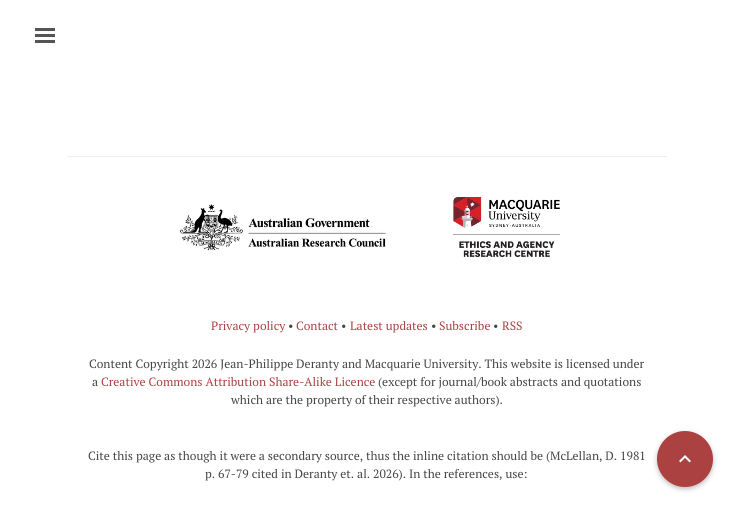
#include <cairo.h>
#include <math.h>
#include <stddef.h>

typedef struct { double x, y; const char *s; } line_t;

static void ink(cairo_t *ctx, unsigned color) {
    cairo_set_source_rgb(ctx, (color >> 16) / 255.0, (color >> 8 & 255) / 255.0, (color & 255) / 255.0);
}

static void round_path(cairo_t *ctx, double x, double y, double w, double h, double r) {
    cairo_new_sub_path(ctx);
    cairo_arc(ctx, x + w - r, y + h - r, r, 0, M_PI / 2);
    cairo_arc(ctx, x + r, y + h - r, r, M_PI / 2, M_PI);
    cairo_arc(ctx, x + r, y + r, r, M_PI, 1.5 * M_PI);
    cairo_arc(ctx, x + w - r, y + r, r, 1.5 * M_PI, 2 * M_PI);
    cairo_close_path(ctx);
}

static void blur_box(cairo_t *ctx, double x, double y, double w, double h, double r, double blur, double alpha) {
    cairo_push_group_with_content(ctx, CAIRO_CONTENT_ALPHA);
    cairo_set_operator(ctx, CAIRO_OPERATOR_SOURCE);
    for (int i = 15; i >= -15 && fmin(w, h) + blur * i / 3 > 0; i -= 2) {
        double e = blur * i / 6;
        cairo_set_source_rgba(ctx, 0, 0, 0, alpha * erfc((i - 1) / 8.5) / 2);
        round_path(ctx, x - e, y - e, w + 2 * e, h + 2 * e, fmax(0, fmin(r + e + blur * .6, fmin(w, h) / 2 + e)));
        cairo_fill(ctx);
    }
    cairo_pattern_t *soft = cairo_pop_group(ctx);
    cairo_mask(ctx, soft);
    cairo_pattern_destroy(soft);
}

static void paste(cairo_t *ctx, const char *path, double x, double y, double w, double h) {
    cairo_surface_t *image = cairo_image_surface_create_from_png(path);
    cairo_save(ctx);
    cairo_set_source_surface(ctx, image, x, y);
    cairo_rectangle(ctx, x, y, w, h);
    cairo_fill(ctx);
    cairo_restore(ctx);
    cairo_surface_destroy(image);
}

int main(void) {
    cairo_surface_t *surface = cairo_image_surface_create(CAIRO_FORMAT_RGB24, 733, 507);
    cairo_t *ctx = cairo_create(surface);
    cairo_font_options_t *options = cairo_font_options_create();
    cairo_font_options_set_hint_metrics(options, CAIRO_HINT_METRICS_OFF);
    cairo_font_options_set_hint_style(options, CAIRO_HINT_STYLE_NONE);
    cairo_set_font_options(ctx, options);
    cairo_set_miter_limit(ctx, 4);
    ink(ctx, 0xFFFFFF);
    cairo_paint(ctx);
    paste(ctx, "media/1.png", 35, 28, 20, 15);
    ink(ctx, 0xEEEEEE);
    cairo_rectangle(ctx, 67, 156, 600, 1);
    cairo_fill(ctx);
    paste(ctx, "media/2.png", 180, 204, 206, 47);
    paste(ctx, "media/3.png", 453, 197, 107, 60);
    cairo_select_font_face(ctx, "PT Serif", CAIRO_FONT_SLANT_NORMAL, CAIRO_FONT_WEIGHT_NORMAL);
    cairo_set_font_size(ctx, 12);
    ink(ctx, 0xAC4142);
    cairo_move_to(ctx, 211, 330);
    cairo_show_text(ctx, "Privacy policy");
    ink(ctx, 0x454545);
    cairo_move_to(ctx, 288, 330);
    cairo_show_text(ctx, "•");
    ink(ctx, 0xAC4142);
    cairo_move_to(ctx, 296, 330);
    cairo_show_text(ctx, "Contact");
    ink(ctx, 0x454545);
    cairo_move_to(ctx, 341, 330);
    cairo_show_text(ctx, "•");
    ink(ctx, 0xAC4142);
    cairo_move_to(ctx, 350, 330);
    cairo_show_text(ctx, "Latest updates");
    ink(ctx, 0x454545);
    cairo_move_to(ctx, 431, 330);
    cairo_show_text(ctx, "•");
    ink(ctx, 0xAC4142);
    cairo_move_to(ctx, 439, 330);
    cairo_show_text(ctx, "Subscribe");
    ink(ctx, 0x454545);
    cairo_move_to(ctx, 493, 330);
    cairo_show_text(ctx, "•");
    ink(ctx, 0xAC4142);
    cairo_move_to(ctx, 502, 330);
    cairo_show_text(ctx, "RSS");
    ink(ctx, 0x454545);
    cairo_move_to(ctx, 89, 368);
    cairo_show_text(ctx, "Content Copyright 2026 Jean-Philippe Deranty and Macquarie University. This website is licensed under");
    cairo_move_to(ctx, 92, 386);
    cairo_show_text(ctx, "a");
    ink(ctx, 0xAC4142);
    cairo_move_to(ctx, 101, 386);
    cairo_show_text(ctx, "Creative Commons Attribution Share-Alike Licence");
    ink(ctx, 0x454545);
    {
        static const line_t items[] = {
            {378, 386, "(except for journal/book abstracts and quotations"},
            {231, 404, "which are the property of their respective authors)."},
            {88, 460, "Cite this page as though it were a secondary source, thus the inline citation should be (McLellan, D. 1981"},
            {205, 478, "p. 67-79 cited in Deranty et. al. 2026). In the references, use:"},
        };
        for (size_t i = 0; i < sizeof items / sizeof *items; i++) {
            cairo_move_to(ctx, items[i].x, items[i].y);
            cairo_show_text(ctx, items[i].s);
        }
    }
    ink(ctx, 0x000000);
    blur_box(ctx, 657, 433, 56, 56, 28, 2.5, 0.26);
    ink(ctx, 0xAC4142);
    cairo_arc(ctx, 685, 459, 28, 0, 2 * M_PI);
    cairo_fill(ctx);
    paste(ctx, "media/4.png", 679, 455, 12, 8);
    cairo_surface_write_to_png(surface, "image.png");
    cairo_font_options_destroy(options);
    cairo_destroy(ctx);
    cairo_surface_destroy(surface);
    return 0;
}
